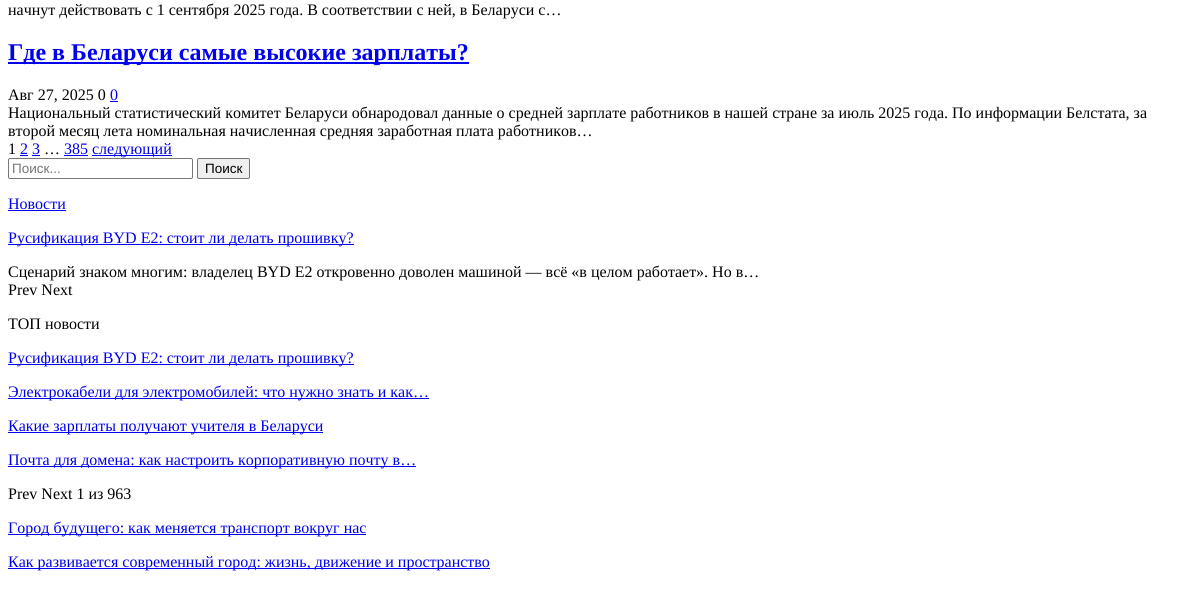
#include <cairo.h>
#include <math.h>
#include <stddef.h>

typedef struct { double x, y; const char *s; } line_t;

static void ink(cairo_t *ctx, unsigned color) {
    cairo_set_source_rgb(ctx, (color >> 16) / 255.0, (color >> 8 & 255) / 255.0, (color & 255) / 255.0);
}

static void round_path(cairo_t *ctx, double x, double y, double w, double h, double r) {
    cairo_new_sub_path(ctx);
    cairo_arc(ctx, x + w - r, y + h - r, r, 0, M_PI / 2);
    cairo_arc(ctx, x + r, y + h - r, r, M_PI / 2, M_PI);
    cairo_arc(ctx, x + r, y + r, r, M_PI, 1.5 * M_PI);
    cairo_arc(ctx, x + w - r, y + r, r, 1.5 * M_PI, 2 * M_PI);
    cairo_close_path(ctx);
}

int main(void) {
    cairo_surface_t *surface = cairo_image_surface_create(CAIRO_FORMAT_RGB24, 1198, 606);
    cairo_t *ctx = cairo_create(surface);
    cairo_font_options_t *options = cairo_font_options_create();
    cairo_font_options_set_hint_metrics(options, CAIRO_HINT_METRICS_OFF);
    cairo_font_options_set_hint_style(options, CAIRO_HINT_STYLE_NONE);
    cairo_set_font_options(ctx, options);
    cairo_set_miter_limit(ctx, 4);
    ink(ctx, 0xFFFFFF);
    cairo_paint(ctx);
    cairo_select_font_face(ctx, "Liberation Serif", CAIRO_FONT_SLANT_NORMAL, CAIRO_FONT_WEIGHT_NORMAL);
    cairo_set_font_size(ctx, 16);
    ink(ctx, 0x000000);
    cairo_move_to(ctx, 8, 15);
    cairo_show_text(ctx, "начнут действовать с 1 сентября 2025 года. В соответствии с ней, в Беларуси с…");
    ink(ctx, 0x0000EE);
    cairo_rectangle(ctx, 8, 62, 461, 2);
    cairo_fill(ctx);
    cairo_select_font_face(ctx, "Liberation Serif", CAIRO_FONT_SLANT_NORMAL, CAIRO_FONT_WEIGHT_BOLD);
    cairo_set_font_size(ctx, 24);
    cairo_move_to(ctx, 8, 60);
    cairo_show_text(ctx, "Где в Беларуси самые высокие зарплаты?");
    cairo_select_font_face(ctx, "Liberation Serif", CAIRO_FONT_SLANT_NORMAL, CAIRO_FONT_WEIGHT_NORMAL);
    cairo_set_font_size(ctx, 16);
    ink(ctx, 0x000000);
    cairo_move_to(ctx, 8, 100);
    cairo_show_text(ctx, "Авг 27, 2025 0");
    ink(ctx, 0x0000EE);
    cairo_move_to(ctx, 110, 100);
    cairo_show_text(ctx, "0");
    cairo_rectangle(ctx, 110, 101, 8, 1);
    cairo_fill(ctx);
    ink(ctx, 0x000000);
    {
        static const line_t items[] = {
            {8, 118, "Национальный статистический комитет Беларуси обнародовал данные о средней зарплате работников в нашей стране за июль 2025 года. По информации Белстата, за"},
            {8, 136, "второй месяц лета номинальная начисленная средняя заработная плата работников…"},
            {8, 154, "1"},
        };
        for (size_t i = 0; i < sizeof items / sizeof *items; i++) {
            cairo_move_to(ctx, items[i].x, items[i].y);
            cairo_show_text(ctx, items[i].s);
        }
    }
    ink(ctx, 0x0000EE);
    cairo_move_to(ctx, 20, 154);
    cairo_show_text(ctx, "2 3");
    cairo_rectangle(ctx, 20, 155, 8, 1);
    cairo_fill(ctx);
    ink(ctx, 0x000000);
    cairo_move_to(ctx, 44, 154);
    cairo_show_text(ctx, "…");
    ink(ctx, 0x0000EE);
    cairo_move_to(ctx, 64, 154);
    cairo_show_text(ctx, "385");
    cairo_rectangle(ctx, 64, 155, 24, 1);
    cairo_fill(ctx);
    cairo_rectangle(ctx, 92, 155, 80, 1);
    cairo_fill(ctx);
    cairo_move_to(ctx, 92, 154);
    cairo_show_text(ctx, "следующий");
    cairo_rectangle(ctx, 32, 155, 8, 1);
    cairo_fill(ctx);
    round_path(ctx, 8.5, 158.5, 184, 20, 1.5);
    ink(ctx, 0x767676);
    cairo_set_line_width(ctx, 1);
    cairo_stroke(ctx);
    cairo_select_font_face(ctx, "Liberation Sans", CAIRO_FONT_SLANT_NORMAL, CAIRO_FONT_WEIGHT_NORMAL);
    cairo_set_font_size(ctx, 13.5);
    ink(ctx, 0x757575);
    cairo_move_to(ctx, 12, 173);
    cairo_show_text(ctx, "Поиск...");
    ink(ctx, 0xEFEFEF);
    round_path(ctx, 197.5, 158.5, 52, 20, 1.5);
    cairo_fill_preserve(ctx);
    ink(ctx, 0x767676);
    cairo_stroke(ctx);
    ink(ctx, 0x000000);
    cairo_move_to(ctx, 205, 173);
    cairo_show_text(ctx, "Поиск");
    cairo_select_font_face(ctx, "Liberation Serif", CAIRO_FONT_SLANT_NORMAL, CAIRO_FONT_WEIGHT_NORMAL);
    cairo_set_font_size(ctx, 16);
    ink(ctx, 0x0000EE);
    cairo_move_to(ctx, 8, 209);
    cairo_show_text(ctx, "Новости");
    cairo_rectangle(ctx, 8, 210, 58, 1);
    cairo_fill(ctx);
    cairo_rectangle(ctx, 8, 244, 346, 1);
    cairo_fill(ctx);
    cairo_move_to(ctx, 8, 243);
    cairo_show_text(ctx, "Русификация BYD E2: стоит ли делать прошивку?");
    ink(ctx, 0x000000);
    {
        static const line_t items[] = {
            {8, 277, "Сценарий знаком многим: владелец BYD E2 откровенно доволен машиной — всё «в целом работает». Но в…"},
            {8, 295, "Prev Next"},
            {8, 329, "ТОП новости"},
        };
        for (size_t i = 0; i < sizeof items / sizeof *items; i++) {
            cairo_move_to(ctx, items[i].x, items[i].y);
            cairo_show_text(ctx, items[i].s);
        }
    }
    ink(ctx, 0x0000EE);
    cairo_rectangle(ctx, 8, 364, 346, 1);
    cairo_fill(ctx);
    cairo_move_to(ctx, 8, 363);
    cairo_show_text(ctx, "Русификация BYD E2: стоит ли делать прошивку?");
    cairo_rectangle(ctx, 8, 398, 421, 1);
    cairo_fill(ctx);
    cairo_move_to(ctx, 8, 397);
    cairo_show_text(ctx, "Электрокабели для электромобилей: что нужно знать и как…");
    cairo_rectangle(ctx, 8, 432, 315, 1);
    cairo_fill(ctx);
    cairo_move_to(ctx, 8, 431);
    cairo_show_text(ctx, "Какие зарплаты получают учителя в Беларуси");
    cairo_rectangle(ctx, 8, 466, 408, 1);
    cairo_fill(ctx);
    cairo_move_to(ctx, 8, 465);
    cairo_show_text(ctx, "Почта для домена: как настроить корпоративную почту в…");
    ink(ctx, 0x000000);
    cairo_move_to(ctx, 8, 499);
    cairo_show_text(ctx, "Prev Next 1 из 963");
    ink(ctx, 0x0000EE);
    cairo_rectangle(ctx, 8, 534, 358, 1);
    cairo_fill(ctx);
    cairo_move_to(ctx, 8, 533);
    cairo_show_text(ctx, "Город будущего: как меняется транспорт вокруг нас");
    cairo_rectangle(ctx, 8, 568, 482, 1);
    cairo_fill(ctx);
    cairo_move_to(ctx, 8, 567);
    cairo_show_text(ctx, "Как развивается современный город: жизнь, движение и пространство");
    cairo_surface_write_to_png(surface, "image.png");
    cairo_font_options_destroy(options);
    cairo_destroy(ctx);
    cairo_surface_destroy(surface);
    return 0;
}
